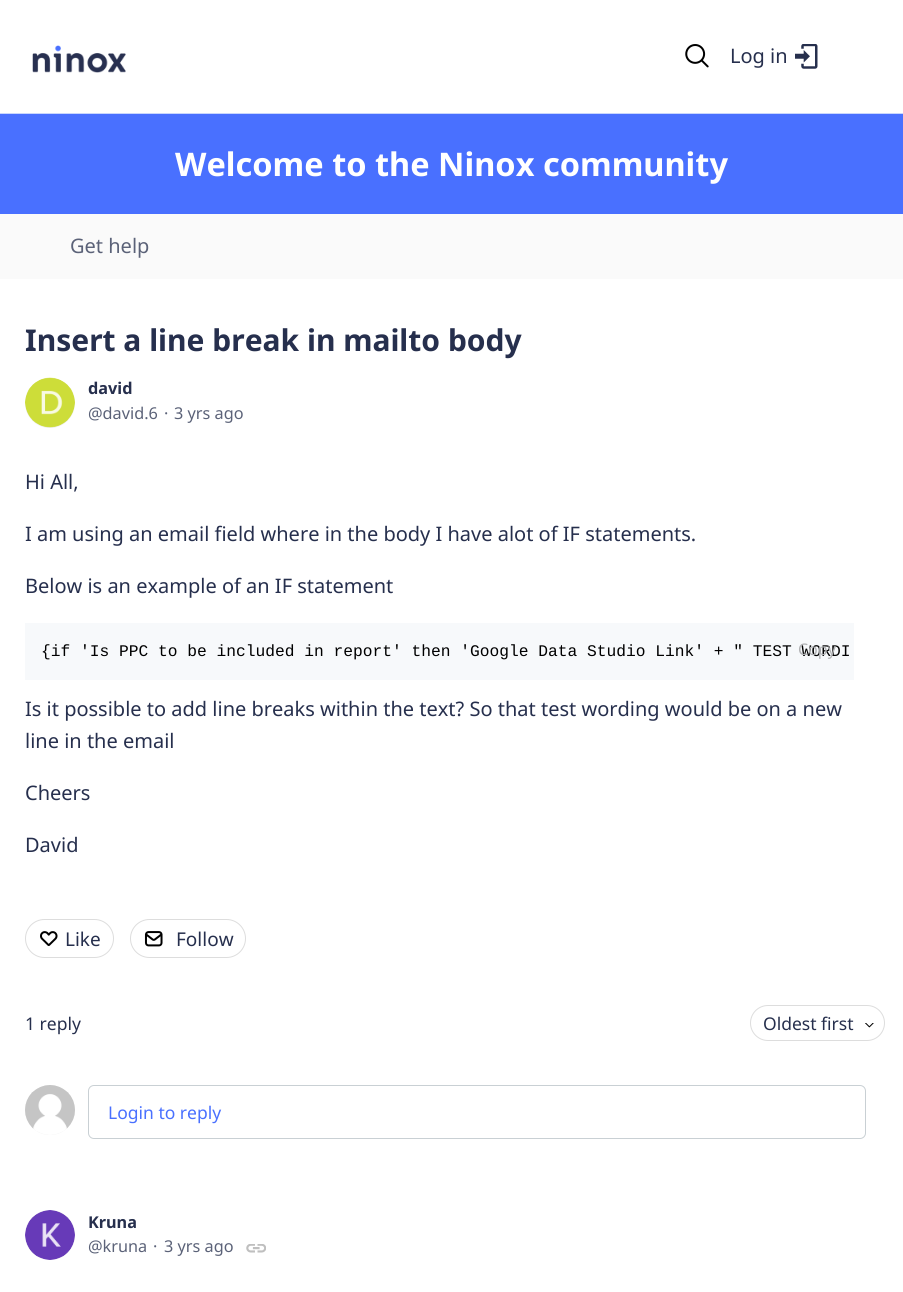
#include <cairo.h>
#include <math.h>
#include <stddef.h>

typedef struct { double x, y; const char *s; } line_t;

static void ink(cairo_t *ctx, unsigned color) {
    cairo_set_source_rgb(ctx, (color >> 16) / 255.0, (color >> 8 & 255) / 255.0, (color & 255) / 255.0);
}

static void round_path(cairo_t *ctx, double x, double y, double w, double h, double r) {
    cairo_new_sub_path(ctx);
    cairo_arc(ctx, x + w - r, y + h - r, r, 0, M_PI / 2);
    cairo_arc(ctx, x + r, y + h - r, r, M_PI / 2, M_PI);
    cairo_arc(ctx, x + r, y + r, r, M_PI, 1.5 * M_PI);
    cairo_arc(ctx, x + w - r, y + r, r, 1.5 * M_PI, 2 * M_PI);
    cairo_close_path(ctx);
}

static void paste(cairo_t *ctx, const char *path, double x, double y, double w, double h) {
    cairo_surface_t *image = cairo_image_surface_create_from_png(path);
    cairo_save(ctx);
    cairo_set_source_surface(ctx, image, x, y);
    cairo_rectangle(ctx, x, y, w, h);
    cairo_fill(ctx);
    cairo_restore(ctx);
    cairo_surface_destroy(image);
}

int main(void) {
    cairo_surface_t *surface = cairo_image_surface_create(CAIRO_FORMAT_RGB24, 903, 1292);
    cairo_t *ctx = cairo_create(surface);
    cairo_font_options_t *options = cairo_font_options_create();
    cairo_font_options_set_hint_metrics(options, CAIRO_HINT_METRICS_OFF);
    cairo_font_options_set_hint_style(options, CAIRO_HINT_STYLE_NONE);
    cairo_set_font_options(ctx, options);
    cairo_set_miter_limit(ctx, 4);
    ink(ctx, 0xFAFAFA);
    cairo_paint(ctx);
    ink(ctx, 0xFFFFFF);
    cairo_rectangle(ctx, 0, 0, 903, 113);
    cairo_fill(ctx);
    ink(ctx, 0xC9D6FD);
    cairo_rectangle(ctx, 0, 113, 903, 1);
    cairo_fill(ctx);
    paste(ctx, "media/1.png", 32, 45, 94, 28);
    paste(ctx, "media/2.png", 685, 44, 24, 24);
    cairo_select_font_face(ctx, "Noto Sans", CAIRO_FONT_SLANT_NORMAL, CAIRO_FONT_WEIGHT_NORMAL);
    cairo_set_font_size(ctx, 20);
    ink(ctx, 0x262F4D);
    cairo_move_to(ctx, 730, 63);
    cairo_show_text(ctx, "Log in");
    paste(ctx, "media/3.png", 795, 44, 23, 25);
    ink(ctx, 0x4970FF);
    cairo_rectangle(ctx, 0, 114, 903, 100);
    cairo_fill(ctx);
    cairo_select_font_face(ctx, "Noto Sans", CAIRO_FONT_SLANT_NORMAL, CAIRO_FONT_WEIGHT_BOLD);
    cairo_set_font_size(ctx, 32.5);
    ink(ctx, 0xFFFFFF);
    cairo_move_to(ctx, 175, 176);
    cairo_show_text(ctx, "Welcome to the Ninox community");
    cairo_select_font_face(ctx, "Noto Sans", CAIRO_FONT_SLANT_NORMAL, CAIRO_FONT_WEIGHT_NORMAL);
    cairo_set_font_size(ctx, 20);
    ink(ctx, 0x5B6278);
    cairo_move_to(ctx, 70, 253);
    cairo_show_text(ctx, "Get help");
    ink(ctx, 0xFFFFFF);
    cairo_rectangle(ctx, 0, 279, 903, 1013);
    cairo_fill(ctx);
    cairo_select_font_face(ctx, "Noto Sans", CAIRO_FONT_SLANT_NORMAL, CAIRO_FONT_WEIGHT_BOLD);
    cairo_set_font_size(ctx, 30);
    ink(ctx, 0x262F4D);
    cairo_move_to(ctx, 25, 351);
    cairo_show_text(ctx, "Insert a line break in mailto body");
    ink(ctx, 0xEFEFEF);
    cairo_new_path(ctx);
    cairo_arc(ctx, 50, 403, 25, 0, 2 * M_PI);
    cairo_fill(ctx);
    paste(ctx, "media/4.png", 25, 377, 50, 51);
    cairo_set_font_size(ctx, 16.25);
    ink(ctx, 0x262F4D);
    cairo_move_to(ctx, 88, 394);
    cairo_show_text(ctx, "david");
    cairo_select_font_face(ctx, "Noto Sans", CAIRO_FONT_SLANT_NORMAL, CAIRO_FONT_WEIGHT_NORMAL);
    ink(ctx, 0x5B6278);
    {
        static const line_t items[] = {
            {88, 419, "@david.6"},
            {164, 419, "·"},
            {174, 419, "3 yrs ago"},
        };
        for (size_t i = 0; i < sizeof items / sizeof *items; i++) {
            cairo_move_to(ctx, items[i].x, items[i].y);
            cairo_show_text(ctx, items[i].s);
        }
    }
    cairo_set_font_size(ctx, 20);
    ink(ctx, 0x262F4D);
    {
        static const line_t items[] = {
            {25, 489, "Hi All,"},
            {25, 541, "I am using an email field where in the body I have alot of IF statements."},
            {25, 593, "Below is an example of an IF statement"},
        };
        for (size_t i = 0; i < sizeof items / sizeof *items; i++) {
            cairo_move_to(ctx, items[i].x, items[i].y);
            cairo_show_text(ctx, items[i].s);
        }
    }
    ink(ctx, 0xF7F9FB);
    cairo_rectangle(ctx, 25, 623, 829, 57);
    cairo_fill(ctx);
    cairo_select_font_face(ctx, "Liberation Mono", CAIRO_FONT_SLANT_NORMAL, CAIRO_FONT_WEIGHT_NORMAL);
    cairo_set_font_size(ctx, 16.25);
    ink(ctx, 0x000000);
    cairo_move_to(ctx, 41, 656);
    cairo_show_text(ctx, "{if 'Is PPC to be included in report' then 'Google Data Studio Link' + \" TEST WORDI");
    cairo_select_font_face(ctx, "Noto Sans", CAIRO_FONT_SLANT_NORMAL, CAIRO_FONT_WEIGHT_NORMAL);
    cairo_set_font_size(ctx, 16);
    ink(ctx, 0xB0B1B3);
    cairo_move_to(ctx, 798, 655);
    cairo_show_text(ctx, "Copy");
    cairo_set_font_size(ctx, 20);
    ink(ctx, 0x262F4D);
    {
        static const line_t items[] = {
            {25, 716, "Is it possible to add line breaks within the text? So that test wording would be on a new"},
            {25, 748, "line in the email"},
            {25, 800, "Cheers"},
            {25, 852, "David"},
        };
        for (size_t i = 0; i < sizeof items / sizeof *items; i++) {
            cairo_move_to(ctx, items[i].x, items[i].y);
            cairo_show_text(ctx, items[i].s);
        }
    }
    round_path(ctx, 25.5, 919.5, 88, 38, 19);
    ink(ctx, 0xDDDDDD);
    cairo_set_line_width(ctx, 1);
    cairo_stroke(ctx);
    paste(ctx, "media/5.png", 40, 931, 18, 15);
    cairo_set_font_size(ctx, 19);
    ink(ctx, 0x262F4D);
    cairo_move_to(ctx, 65, 946);
    cairo_show_text(ctx, "Like");
    round_path(ctx, 130.5, 919.5, 115, 38, 19);
    ink(ctx, 0xDDDDDD);
    cairo_stroke(ctx);
    paste(ctx, "media/6.png", 144, 931, 19, 16);
    ink(ctx, 0x262F4D);
    cairo_move_to(ctx, 176, 946);
    cairo_show_text(ctx, "Follow");
    cairo_set_font_size(ctx, 17.5);
    cairo_move_to(ctx, 25, 1030);
    cairo_show_text(ctx, "1 reply");
    round_path(ctx, 750.5, 1005.5, 134, 35, 17.5);
    ink(ctx, 0xDDDDDD);
    cairo_stroke(ctx);
    ink(ctx, 0x262F4D);
    cairo_move_to(ctx, 763, 1030);
    cairo_show_text(ctx, "Oldest first");
    paste(ctx, "media/7.png", 865, 1023, 9, 5);
    ink(ctx, 0xEFEFEF);
    cairo_arc(ctx, 50, 1110, 25, 0, 2 * M_PI);
    cairo_fill(ctx);
    paste(ctx, "media/8.png", 25, 1085, 50, 50);
    round_path(ctx, 88.5, 1085.5, 777, 53, 5.5);
    ink(ctx, 0xC9D0D4);
    cairo_stroke(ctx);
    ink(ctx, 0x4970FF);
    cairo_move_to(ctx, 108, 1119);
    cairo_show_text(ctx, "Login to reply");
    ink(ctx, 0xEFEFEF);
    cairo_new_path(ctx);
    cairo_arc(ctx, 50, 1235, 25, 0, 2 * M_PI);
    cairo_fill(ctx);
    paste(ctx, "media/9.png", 25, 1210, 50, 50);
    cairo_select_font_face(ctx, "Noto Sans", CAIRO_FONT_SLANT_NORMAL, CAIRO_FONT_WEIGHT_BOLD);
    cairo_set_font_size(ctx, 16.25);
    ink(ctx, 0x262F4D);
    cairo_move_to(ctx, 88, 1228);
    cairo_show_text(ctx, "Kruna");
    cairo_select_font_face(ctx, "Noto Sans", CAIRO_FONT_SLANT_NORMAL, CAIRO_FONT_WEIGHT_NORMAL);
    ink(ctx, 0x5B6278);
    {
        static const line_t items[] = {
            {88, 1252, "@kruna"},
            {153, 1252, "·"},
            {164, 1252, "3 yrs ago"},
        };
        for (size_t i = 0; i < sizeof items / sizeof *items; i++) {
            cairo_move_to(ctx, items[i].x, items[i].y);
            cairo_show_text(ctx, items[i].s);
        }
    }
    paste(ctx, "media/10.png", 246, 1244, 20, 9);
    cairo_surface_write_to_png(surface, "image.png");
    cairo_font_options_destroy(options);
    cairo_destroy(ctx);
    cairo_surface_destroy(surface);
    return 0;
}
